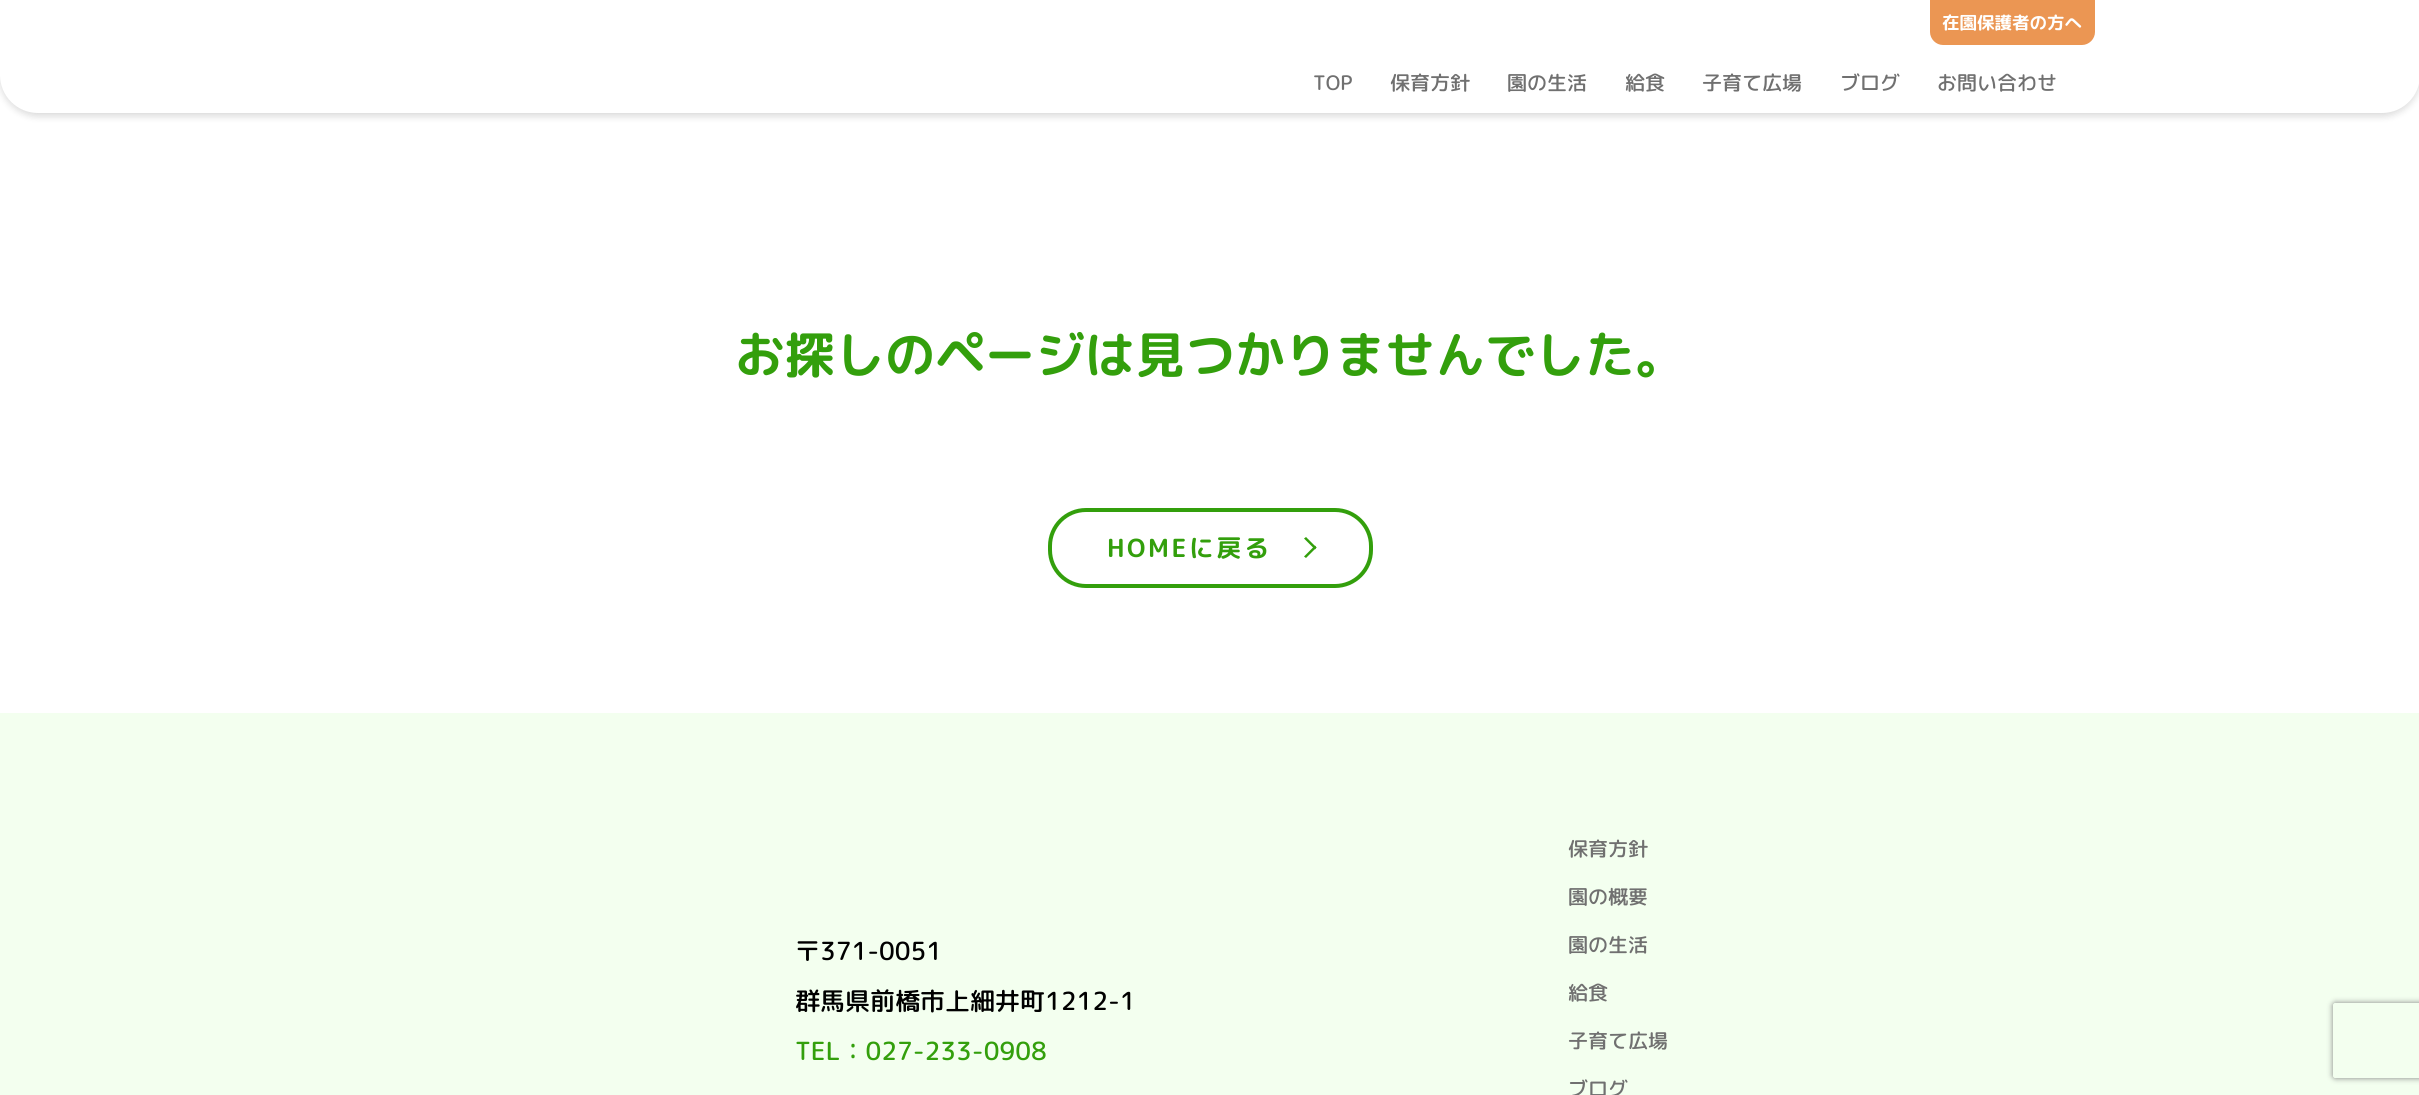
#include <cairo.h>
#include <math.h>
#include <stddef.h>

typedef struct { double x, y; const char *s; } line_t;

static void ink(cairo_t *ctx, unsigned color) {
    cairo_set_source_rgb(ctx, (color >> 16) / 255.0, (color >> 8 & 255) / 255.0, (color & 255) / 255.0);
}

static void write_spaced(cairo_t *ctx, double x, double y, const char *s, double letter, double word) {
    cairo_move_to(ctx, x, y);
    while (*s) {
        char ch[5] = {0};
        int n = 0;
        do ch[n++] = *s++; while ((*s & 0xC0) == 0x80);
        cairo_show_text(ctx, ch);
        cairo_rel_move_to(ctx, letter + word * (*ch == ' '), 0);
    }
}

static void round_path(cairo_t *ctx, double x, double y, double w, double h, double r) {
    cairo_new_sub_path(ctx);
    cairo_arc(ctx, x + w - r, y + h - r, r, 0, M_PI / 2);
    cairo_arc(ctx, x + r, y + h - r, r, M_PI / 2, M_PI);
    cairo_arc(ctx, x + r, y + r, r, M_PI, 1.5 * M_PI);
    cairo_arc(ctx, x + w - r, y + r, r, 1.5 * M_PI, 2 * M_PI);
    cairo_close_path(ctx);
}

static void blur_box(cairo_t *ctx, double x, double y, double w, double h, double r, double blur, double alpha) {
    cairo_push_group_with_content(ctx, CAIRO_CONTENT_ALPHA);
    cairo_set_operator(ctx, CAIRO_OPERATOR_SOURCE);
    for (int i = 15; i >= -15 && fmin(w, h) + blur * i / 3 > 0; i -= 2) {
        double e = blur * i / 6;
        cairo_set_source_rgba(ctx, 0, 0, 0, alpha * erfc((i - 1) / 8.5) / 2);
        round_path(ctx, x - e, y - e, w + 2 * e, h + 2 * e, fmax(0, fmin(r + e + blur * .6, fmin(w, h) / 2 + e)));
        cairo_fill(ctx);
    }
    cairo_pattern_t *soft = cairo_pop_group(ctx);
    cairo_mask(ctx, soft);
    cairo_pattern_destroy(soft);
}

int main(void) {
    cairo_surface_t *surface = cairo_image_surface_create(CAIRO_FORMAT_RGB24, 2419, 1095);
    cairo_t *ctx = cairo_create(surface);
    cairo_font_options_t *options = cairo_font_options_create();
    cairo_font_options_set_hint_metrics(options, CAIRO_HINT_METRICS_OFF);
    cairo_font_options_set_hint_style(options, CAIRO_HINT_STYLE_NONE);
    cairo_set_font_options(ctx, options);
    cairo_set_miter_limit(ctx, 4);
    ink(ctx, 0xFFFFFF);
    cairo_paint(ctx);
    ink(ctx, 0x000000);
    blur_box(ctx, 0, 4, 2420, 112, 38, 4, 0.16);
    ink(ctx, 0xFFFFFF);
    cairo_new_path(ctx);
    cairo_move_to(ctx, 0, 0);
    cairo_line_to(ctx, 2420, 0);
    cairo_line_to(ctx, 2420, 75);
    cairo_curve_to(ctx, 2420, 96, 2403, 113, 2382, 113);
    cairo_line_to(ctx, 38, 113);
    cairo_curve_to(ctx, 17, 113, 0, 96, 0, 75);
    cairo_close_path(ctx);
    cairo_fill(ctx);
    ink(ctx, 0xEB9653);
    cairo_new_path(ctx);
    cairo_move_to(ctx, 1930, 0);
    cairo_line_to(ctx, 2095, 0);
    cairo_line_to(ctx, 2095, 32);
    cairo_curve_to(ctx, 2095, 39, 2089, 45, 2082, 45);
    cairo_line_to(ctx, 1943, 45);
    cairo_curve_to(ctx, 1936, 45, 1930, 39, 1930, 32);
    cairo_close_path(ctx);
    cairo_fill(ctx);
    cairo_select_font_face(ctx, "Rounded Mplus 1c Bold", CAIRO_FONT_SLANT_NORMAL, CAIRO_FONT_WEIGHT_BOLD);
    cairo_set_font_size(ctx, 17.5);
    ink(ctx, 0xFFFFFF);
    cairo_move_to(ctx, 1942, 29);
    cairo_show_text(ctx, "在園保護者の方へ");
    cairo_select_font_face(ctx, "Rounded Mplus 1c Medium", CAIRO_FONT_SLANT_NORMAL, CAIRO_FONT_WEIGHT_NORMAL);
    cairo_set_font_size(ctx, 20);
    ink(ctx, 0x707070);
    {
        static const line_t items[] = {
            {1313, 90, "TOP"},
            {1390, 90, "保育方針"},
            {1507, 90, "園の生活"},
            {1625, 90, "給食"},
            {1702, 90, "子育て広場"},
            {1840, 90, "ブログ"},
            {1937, 90, "お問い合わせ"},
        };
        for (size_t i = 0; i < sizeof items / sizeof *items; i++) {
            cairo_move_to(ctx, items[i].x, items[i].y);
            cairo_show_text(ctx, items[i].s);
        }
    }
    cairo_select_font_face(ctx, "Rounded Mplus 1c Bold", CAIRO_FONT_SLANT_NORMAL, CAIRO_FONT_WEIGHT_BOLD);
    cairo_set_font_size(ctx, 50);
    ink(ctx, 0x339F0C);
    cairo_move_to(ctx, 735, 373);
    cairo_show_text(ctx, "お探しのページは見つかりませんでした。");
    round_path(ctx, 1050, 510, 321, 76, 36);
    cairo_set_line_width(ctx, 4);
    cairo_stroke(ctx);
    cairo_set_font_size(ctx, 25);
    write_spaced(ctx, 1107, 557, "HOMEに戻る", 2.5, 0);
    cairo_new_path(ctx);
    cairo_move_to(ctx, 1306, 537);
    cairo_line_to(ctx, 1316.5, 547.5);
    cairo_line_to(ctx, 1315, 549.5);
    cairo_line_to(ctx, 1304, 538.5);
    cairo_close_path(ctx);
    cairo_fill(ctx);
    cairo_new_path(ctx);
    cairo_move_to(ctx, 1315, 545.5);
    cairo_line_to(ctx, 1316.5, 547.5);
    cairo_line_to(ctx, 1306, 558);
    cairo_line_to(ctx, 1304, 556.5);
    cairo_close_path(ctx);
    cairo_fill(ctx);
    ink(ctx, 0xF3FFEF);
    cairo_rectangle(ctx, 0, 713, 2419, 382);
    cairo_fill(ctx);
    cairo_select_font_face(ctx, "Rounded Mplus 1c Medium", CAIRO_FONT_SLANT_NORMAL, CAIRO_FONT_WEIGHT_NORMAL);
    ink(ctx, 0x000000);
    cairo_move_to(ctx, 795, 960);
    cairo_show_text(ctx, "〒371-0051");
    cairo_move_to(ctx, 795, 1010);
    cairo_show_text(ctx, "群馬県前橋市上細井町1212-1");
    ink(ctx, 0x339F0C);
    cairo_move_to(ctx, 795, 1060);
    cairo_show_text(ctx, "TEL：027-233-0908");
    cairo_set_font_size(ctx, 20);
    ink(ctx, 0x707070);
    {
        static const line_t items[] = {
            {1568, 856, "保育方針"},
            {1568, 904, "園の概要"},
            {1568, 952, "園の生活"},
            {1568, 1000, "給食"},
            {1568, 1048, "子育て広場"},
            {1568, 1096, "ブログ"},
        };
        for (size_t i = 0; i < sizeof items / sizeof *items; i++) {
            cairo_move_to(ctx, items[i].x, items[i].y);
            cairo_show_text(ctx, items[i].s);
        }
    }
    cairo_save(ctx);
    cairo_set_fill_rule(ctx, CAIRO_FILL_RULE_EVEN_ODD);
    cairo_new_path(ctx);
    cairo_move_to(ctx, 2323, 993);
    cairo_line_to(ctx, 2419, 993);
    cairo_line_to(ctx, 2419, 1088);
    cairo_line_to(ctx, 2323, 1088);
    cairo_close_path(ctx);
    cairo_move_to(ctx, 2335.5, 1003);
    cairo_line_to(ctx, 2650.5, 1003);
    cairo_curve_to(ctx, 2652, 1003, 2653, 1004, 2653, 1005.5);
    cairo_line_to(ctx, 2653, 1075.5);
    cairo_curve_to(ctx, 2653, 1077, 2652, 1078, 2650.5, 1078);
    cairo_line_to(ctx, 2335.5, 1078);
    cairo_curve_to(ctx, 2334, 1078, 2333, 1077, 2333, 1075.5);
    cairo_line_to(ctx, 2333, 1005.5);
    cairo_curve_to(ctx, 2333, 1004, 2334, 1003, 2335.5, 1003);
    cairo_close_path(ctx);
    cairo_clip(ctx);
    ink(ctx, 0x808080);
    blur_box(ctx, 2333, 1003, 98, 75, 2.5, 3, 1);
    cairo_restore(ctx);
    cairo_surface_write_to_png(surface, "image.png");
    cairo_font_options_destroy(options);
    cairo_destroy(ctx);
    cairo_surface_destroy(surface);
    return 0;
}
